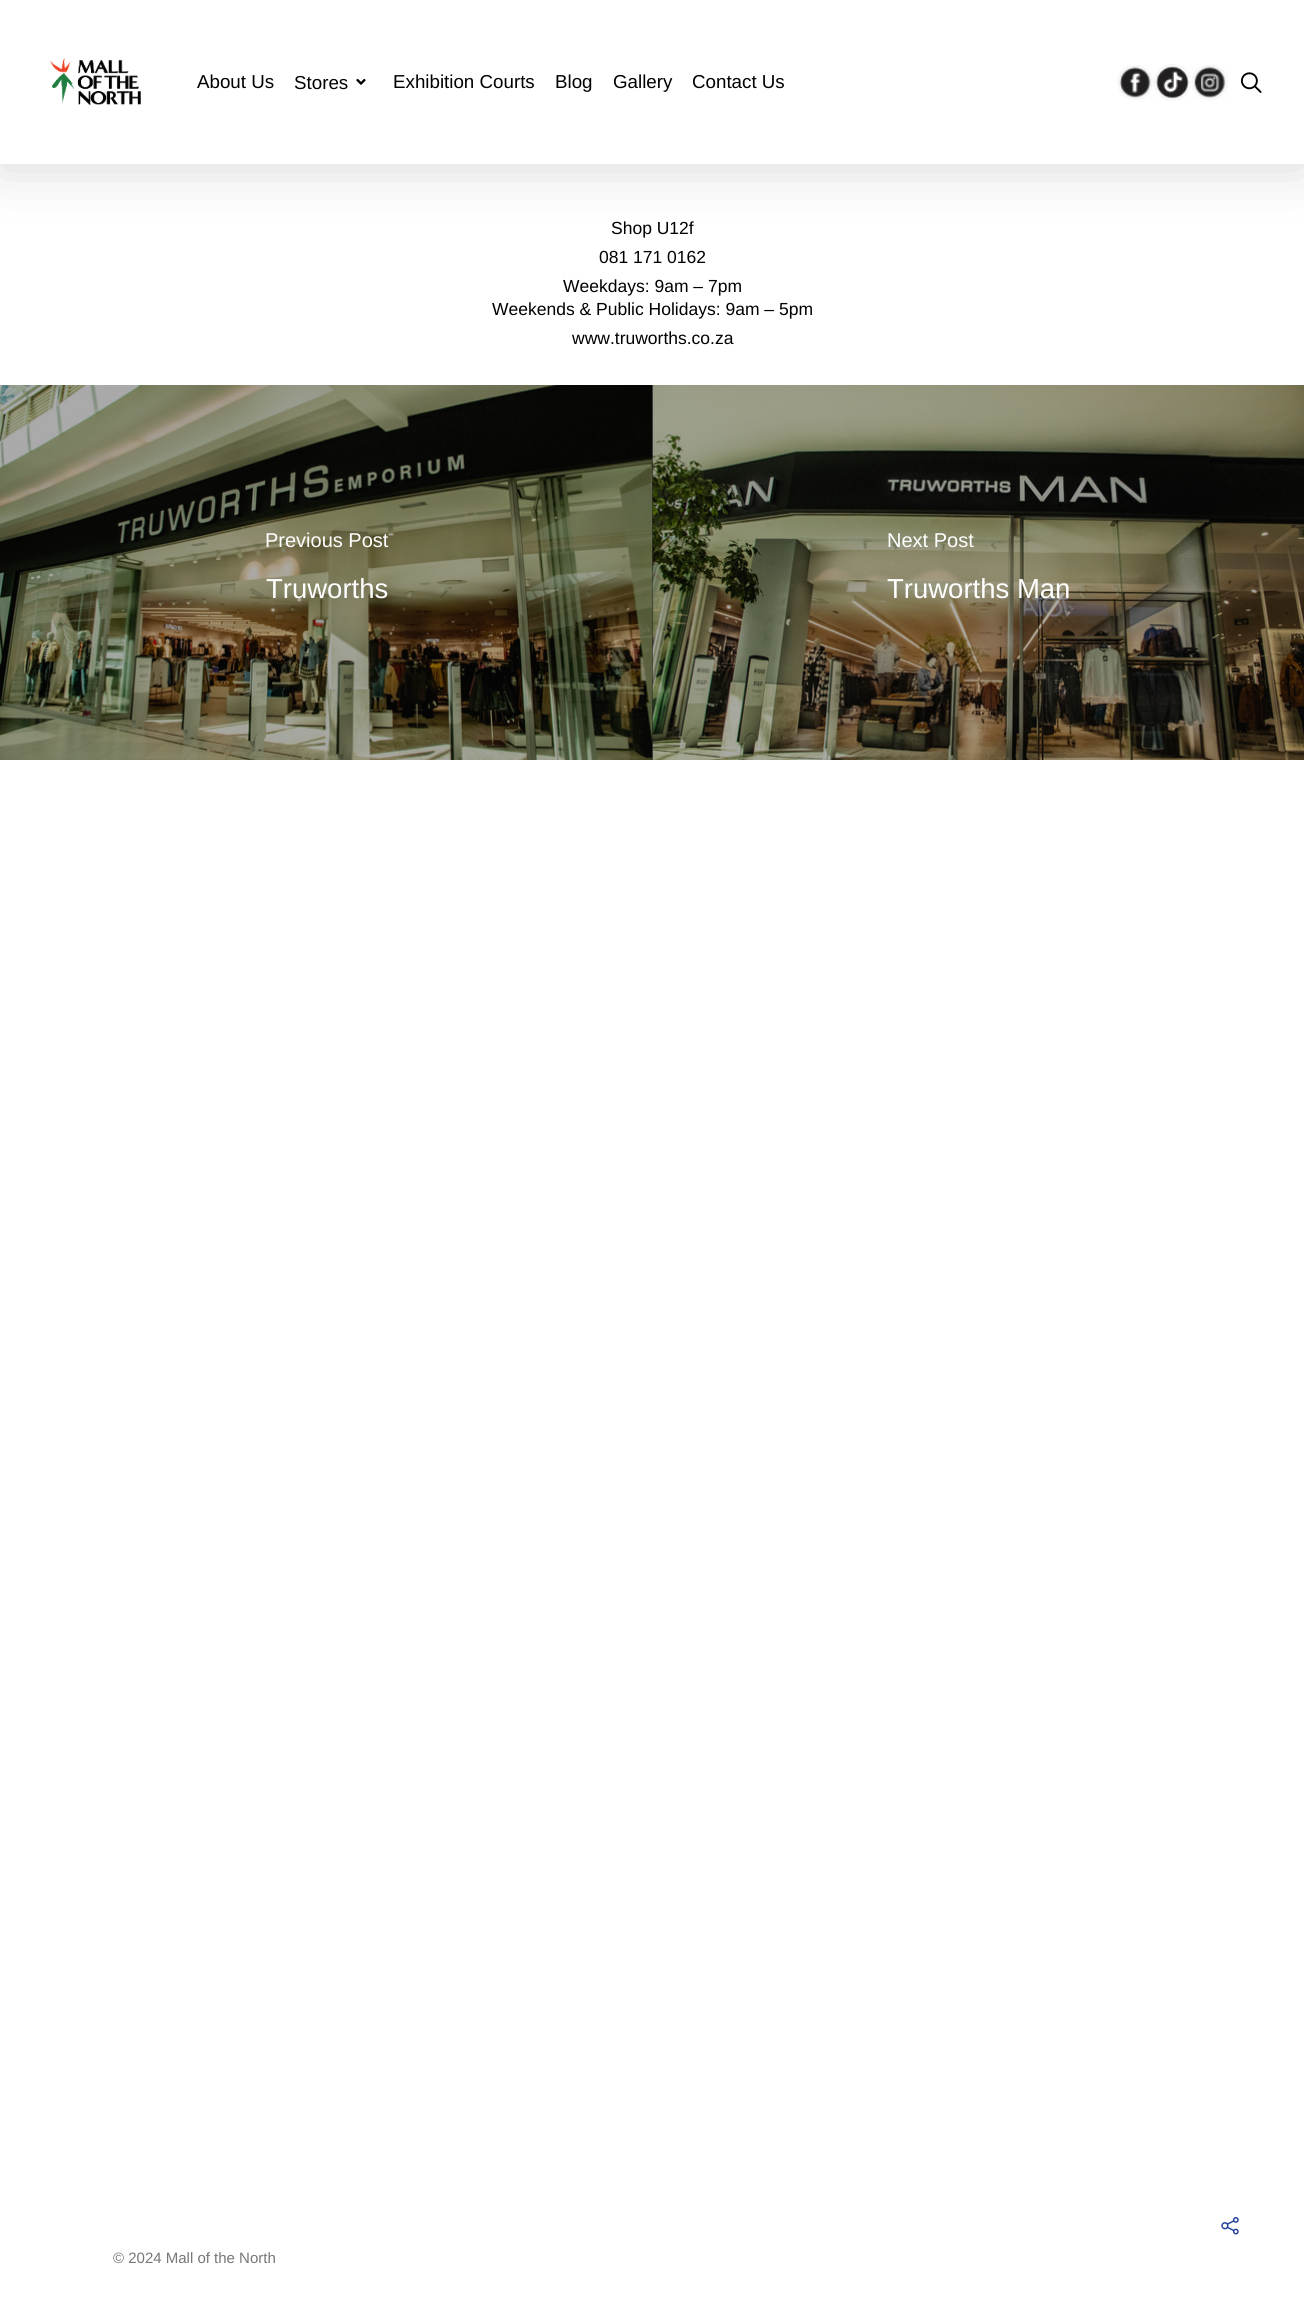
#include <cairo.h>
#include <math.h>
#include <stddef.h>

typedef struct { double x, y; const char *s; } line_t;

static void ink(cairo_t *ctx, unsigned color) {
    cairo_set_source_rgb(ctx, (color >> 16) / 255.0, (color >> 8 & 255) / 255.0, (color & 255) / 255.0);
}

static void round_path(cairo_t *ctx, double x, double y, double w, double h, double r) {
    cairo_new_sub_path(ctx);
    cairo_arc(ctx, x + w - r, y + h - r, r, 0, M_PI / 2);
    cairo_arc(ctx, x + r, y + h - r, r, M_PI / 2, M_PI);
    cairo_arc(ctx, x + r, y + r, r, M_PI, 1.5 * M_PI);
    cairo_arc(ctx, x + w - r, y + r, r, 1.5 * M_PI, 2 * M_PI);
    cairo_close_path(ctx);
}

static void blur_box(cairo_t *ctx, double x, double y, double w, double h, double r, double blur, double alpha) {
    cairo_push_group_with_content(ctx, CAIRO_CONTENT_ALPHA);
    cairo_set_operator(ctx, CAIRO_OPERATOR_SOURCE);
    for (int i = 15; i >= -15 && fmin(w, h) + blur * i / 3 > 0; i -= 2) {
        double e = blur * i / 6;
        cairo_set_source_rgba(ctx, 0, 0, 0, alpha * erfc((i - 1) / 8.5) / 2);
        round_path(ctx, x - e, y - e, w + 2 * e, h + 2 * e, fmax(0, fmin(r + e + blur * .6, fmin(w, h) / 2 + e)));
        cairo_fill(ctx);
    }
    cairo_pattern_t *soft = cairo_pop_group(ctx);
    cairo_mask(ctx, soft);
    cairo_pattern_destroy(soft);
}

static void paste(cairo_t *ctx, const char *path, double x, double y, double w, double h) {
    cairo_surface_t *image = cairo_image_surface_create_from_png(path);
    cairo_save(ctx);
    cairo_set_source_surface(ctx, image, x, y);
    cairo_rectangle(ctx, x, y, w, h);
    cairo_fill(ctx);
    cairo_restore(ctx);
    cairo_surface_destroy(image);
}

int main(void) {
    cairo_surface_t *surface = cairo_image_surface_create(CAIRO_FORMAT_RGB24, 1304, 2300);
    cairo_t *ctx = cairo_create(surface);
    cairo_font_options_t *options = cairo_font_options_create();
    cairo_font_options_set_hint_metrics(options, CAIRO_HINT_METRICS_OFF);
    cairo_font_options_set_hint_style(options, CAIRO_HINT_STYLE_NONE);
    cairo_set_font_options(ctx, options);
    cairo_set_miter_limit(ctx, 4);
    ink(ctx, 0xFFFFFF);
    cairo_paint(ctx);
    ink(ctx, 0x000000);
    blur_box(ctx, 0, 4, 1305, 164, 0, 28, 0.15);
    ink(ctx, 0xFFFFFF);
    cairo_rectangle(ctx, 0, 0, 1304, 164);
    cairo_fill(ctx);
    paste(ctx, "media/1.png", 50, 58, 91, 48);
    cairo_select_font_face(ctx, "Liberation Sans", CAIRO_FONT_SLANT_NORMAL, CAIRO_FONT_WEIGHT_NORMAL);
    cairo_set_font_size(ctx, 18.75);
    ink(ctx, 0x000000);
    cairo_move_to(ctx, 197, 88);
    cairo_show_text(ctx, "About Us");
    cairo_move_to(ctx, 294, 89);
    cairo_show_text(ctx, "Stores");
    paste(ctx, "media/2.png", 356, 78, 10, 7);
    {
        static const line_t items[] = {
            {393, 88, "Exhibition Courts"},
            {555, 88, "Blog"},
            {613, 88, "Gallery"},
            {692, 88, "Contact Us"},
        };
        for (size_t i = 0; i < sizeof items / sizeof *items; i++) {
            cairo_move_to(ctx, items[i].x, items[i].y);
            cairo_show_text(ctx, items[i].s);
        }
    }
    paste(ctx, "media/3.png", 1117, 65, 36, 35);
    paste(ctx, "media/4.png", 1153, 64, 38, 37);
    paste(ctx, "media/5.png", 1191, 65, 37, 36);
    paste(ctx, "media/6.png", 1240, 72, 22, 21);
    cairo_set_font_size(ctx, 17.5);
    {
        static const line_t items[] = {
            {611, 234, "Shop U12f"},
            {599, 263, "081 171 0162"},
            {563, 292, "Weekdays: 9am – 7pm"},
            {492, 315, "Weekends & Public Holidays: 9am – 5pm"},
            {572, 344, "www.truworths.co.za"},
        };
        for (size_t i = 0; i < sizeof items / sizeof *items; i++) {
            cairo_move_to(ctx, items[i].x, items[i].y);
            cairo_show_text(ctx, items[i].s);
        }
    }
    ink(ctx, 0x333333);
    cairo_rectangle(ctx, 652, 385, 1, 375);
    cairo_fill(ctx);
    paste(ctx, "media/7.png", 0, 385, 653, 375);
    paste(ctx, "media/8.png", 652, 385, 652, 375);
    cairo_set_source_rgba(ctx, 0.051, 0.051, 0.051, 0.35);
    cairo_rectangle(ctx, 0, 385, 653, 375);
    cairo_fill(ctx);
    cairo_set_font_size(ctx, 20);
    ink(ctx, 0xFFFFFF);
    cairo_move_to(ctx, 265, 547);
    cairo_show_text(ctx, "Previous Post");
    cairo_set_font_size(ctx, 27.5);
    cairo_move_to(ctx, 266, 598);
    cairo_show_text(ctx, "Truworths");
    cairo_set_font_size(ctx, 20);
    cairo_move_to(ctx, 887, 547);
    cairo_show_text(ctx, "Next Post");
    cairo_set_font_size(ctx, 27.5);
    cairo_move_to(ctx, 887, 598);
    cairo_show_text(ctx, "Truworths Man");
    paste(ctx, "media/9.png", 1221, 2217, 18, 18);
    cairo_set_font_size(ctx, 15);
    ink(ctx, 0x777777);
    cairo_move_to(ctx, 113, 2263);
    cairo_show_text(ctx, "© 2024 Mall of the North");
    cairo_surface_write_to_png(surface, "image.png");
    cairo_font_options_destroy(options);
    cairo_destroy(ctx);
    cairo_surface_destroy(surface);
    return 0;
}
